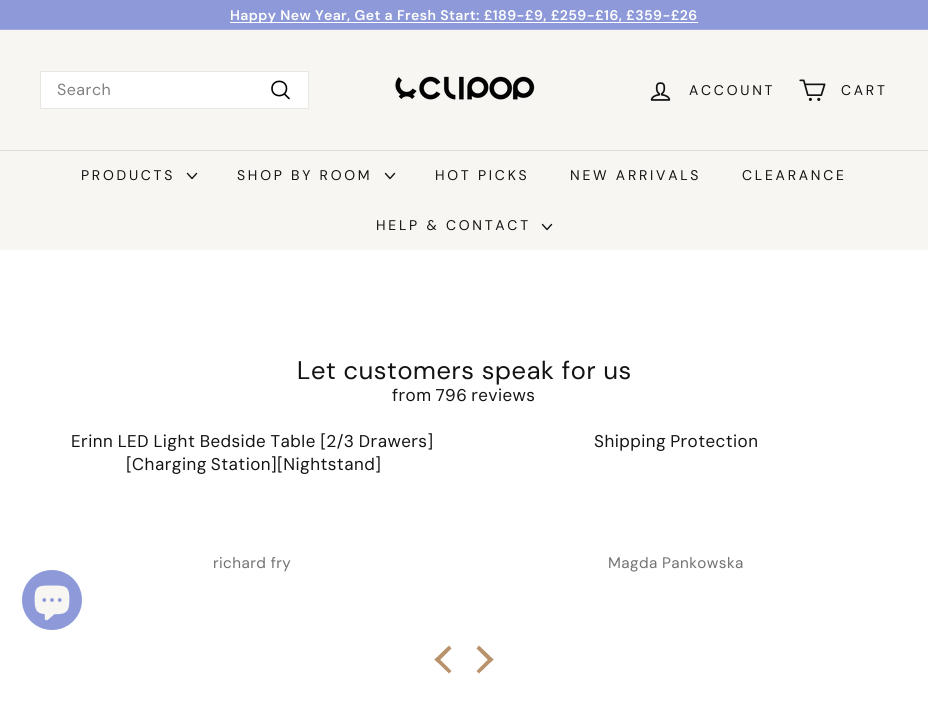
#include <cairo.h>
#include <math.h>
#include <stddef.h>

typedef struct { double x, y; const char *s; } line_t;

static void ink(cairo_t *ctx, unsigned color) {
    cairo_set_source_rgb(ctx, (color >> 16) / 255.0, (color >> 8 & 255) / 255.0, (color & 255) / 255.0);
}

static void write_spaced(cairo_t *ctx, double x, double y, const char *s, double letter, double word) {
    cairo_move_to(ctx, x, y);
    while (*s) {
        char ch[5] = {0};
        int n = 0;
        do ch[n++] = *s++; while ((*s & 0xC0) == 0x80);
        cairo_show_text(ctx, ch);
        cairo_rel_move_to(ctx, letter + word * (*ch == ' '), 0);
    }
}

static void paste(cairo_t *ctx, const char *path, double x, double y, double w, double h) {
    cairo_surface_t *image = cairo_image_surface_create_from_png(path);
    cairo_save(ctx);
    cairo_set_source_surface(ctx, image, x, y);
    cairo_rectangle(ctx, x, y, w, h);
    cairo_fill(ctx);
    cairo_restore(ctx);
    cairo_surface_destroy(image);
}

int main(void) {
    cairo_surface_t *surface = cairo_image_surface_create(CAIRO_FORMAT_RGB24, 928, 715);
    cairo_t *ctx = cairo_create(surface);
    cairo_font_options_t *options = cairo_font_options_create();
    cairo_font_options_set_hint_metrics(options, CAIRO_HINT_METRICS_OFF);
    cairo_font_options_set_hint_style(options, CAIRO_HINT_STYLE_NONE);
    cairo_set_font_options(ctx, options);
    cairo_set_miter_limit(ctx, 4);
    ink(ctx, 0xFFFFFF);
    cairo_paint(ctx);
    ink(ctx, 0x8E99D9);
    cairo_rectangle(ctx, 0, 0, 928, 29);
    cairo_fill(ctx);
    ink(ctx, 0xFFFFFF);
    cairo_rectangle(ctx, 230, 22, 468, 1);
    cairo_fill(ctx);
    cairo_select_font_face(ctx, "DM Sans SemiBold", CAIRO_FONT_SLANT_NORMAL, CAIRO_FONT_WEIGHT_NORMAL);
    cairo_set_font_size(ctx, 14);
    write_spaced(ctx, 230, 20, "Happy New Year, Get a Fresh Start: £189-£9, £259-£16, £359-£26", 0.42, 0);
    ink(ctx, 0x9FA8DF);
    cairo_rectangle(ctx, 0, 29, 928, 1);
    cairo_fill(ctx);
    ink(ctx, 0xF7F6F2);
    cairo_rectangle(ctx, 0, 30, 928, 120);
    cairo_fill(ctx);
    ink(ctx, 0xFFFFFF);
    cairo_rectangle(ctx, 40.5, 71.5, 268, 37);
    cairo_fill_preserve(ctx);
    ink(ctx, 0xE8E8E1);
    cairo_set_line_width(ctx, 1);
    cairo_stroke(ctx);
    cairo_select_font_face(ctx, "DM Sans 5", CAIRO_FONT_SLANT_NORMAL, CAIRO_FONT_WEIGHT_NORMAL);
    cairo_set_font_size(ctx, 16);
    ink(ctx, 0x808080);
    write_spaced(ctx, 57, 95, "Search", 0.5, 0);
    cairo_new_path(ctx);
    cairo_move_to(ctx, 286.5, 88.5);
    cairo_curve_to(ctx, 286.5, 98, 272, 98, 272, 88.5);
    cairo_curve_to(ctx, 272, 79, 286.5, 79, 286.5, 88.5);
    cairo_close_path(ctx);
    cairo_move_to(ctx, 289, 98.5);
    cairo_line_to(ctx, 284.5, 94);
    ink(ctx, 0x000000);
    cairo_set_line_width(ctx, 1.6);
    cairo_set_line_cap(ctx, CAIRO_LINE_CAP_ROUND);
    cairo_set_line_join(ctx, CAIRO_LINE_JOIN_ROUND);
    cairo_stroke(ctx);
    paste(ctx, "media/1.png", 395, 76, 140, 24);
    paste(ctx, "media/2.png", 650, 82, 21, 19);
    cairo_select_font_face(ctx, "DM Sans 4", CAIRO_FONT_SLANT_NORMAL, CAIRO_FONT_WEIGHT_NORMAL);
    cairo_set_font_size(ctx, 14);
    ink(ctx, 0x151212);
    write_spaced(ctx, 689, 95, "ACCOUNT", 2.75, 0);
    paste(ctx, "media/3.png", 799, 79, 27, 22);
    write_spaced(ctx, 841, 95, "CART", 2.75, 0);
    ink(ctx, 0xE0DFDC);
    cairo_rectangle(ctx, 0, 150, 928, 1);
    cairo_fill(ctx);
    ink(ctx, 0xF7F6F2);
    cairo_rectangle(ctx, 0, 151, 928, 99);
    cairo_fill(ctx);
    ink(ctx, 0x151212);
    write_spaced(ctx, 81, 180, "PRODUCTS", 2.75, 0);
    cairo_new_path(ctx);
    cairo_move_to(ctx, 187.5, 173.5);
    cairo_line_to(ctx, 192, 178.5);
    cairo_line_to(ctx, 196.5, 173.5);
    ink(ctx, 0x111212);
    cairo_set_line_width(ctx, 1.4);
    cairo_stroke(ctx);
    ink(ctx, 0x151212);
    write_spaced(ctx, 237, 180, "SHOP BY ROOM", 2.75, 0);
    cairo_new_path(ctx);
    cairo_move_to(ctx, 385.5, 173.5);
    cairo_line_to(ctx, 390, 178.5);
    cairo_line_to(ctx, 394.5, 173.5);
    ink(ctx, 0x111212);
    cairo_stroke(ctx);
    ink(ctx, 0x151212);
    {
        static const line_t items[] = {
            {435, 180, "HOT PICKS"},
            {570, 180, "NEW ARRIVALS"},
            {742, 180, "CLEARANCE"},
            {376, 230, "HELP & CONTACT"},
        };
        for (size_t i = 0; i < sizeof items / sizeof *items; i++) {
            write_spaced(ctx, items[i].x, items[i].y, items[i].s, 2.75, 0);
        }
    }
    cairo_new_path(ctx);
    cairo_move_to(ctx, 542.5, 224.5);
    cairo_line_to(ctx, 547, 229.5);
    cairo_line_to(ctx, 551.5, 224.5);
    ink(ctx, 0x111212);
    cairo_stroke(ctx);
    cairo_select_font_face(ctx, "DM Sans", CAIRO_FONT_SLANT_NORMAL, CAIRO_FONT_WEIGHT_NORMAL);
    cairo_set_font_size(ctx, 25.5);
    ink(ctx, 0x151212);
    write_spaced(ctx, 297, 379, "Let customers speak for us", 0.65, 0);
    cairo_select_font_face(ctx, "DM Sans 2", CAIRO_FONT_SLANT_NORMAL, CAIRO_FONT_WEIGHT_NORMAL);
    cairo_set_font_size(ctx, 17);
    write_spaced(ctx, 392, 401, "from 796 reviews", 0.42, -1);
    write_spaced(ctx, 71, 447, "Erinn LED Light Bedside Table [2/3 Drawers]", 0.42, -0.5);
    write_spaced(ctx, 126, 470, "[Charging Station][Nightstand]", 0.42, -1);
    cairo_select_font_face(ctx, "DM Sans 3", CAIRO_FONT_SLANT_NORMAL, CAIRO_FONT_WEIGHT_NORMAL);
    cairo_set_font_size(ctx, 15.25);
    ink(ctx, 0x737171);
    write_spaced(ctx, 213, 568, "richard fry", 0.42, 0);
    cairo_select_font_face(ctx, "DM Sans 2", CAIRO_FONT_SLANT_NORMAL, CAIRO_FONT_WEIGHT_NORMAL);
    cairo_set_font_size(ctx, 17);
    ink(ctx, 0x151212);
    write_spaced(ctx, 594, 447, "Shipping Protection", 0.42, -1);
    cairo_select_font_face(ctx, "DM Sans 3", CAIRO_FONT_SLANT_NORMAL, CAIRO_FONT_WEIGHT_NORMAL);
    cairo_set_font_size(ctx, 15.25);
    ink(ctx, 0x737171);
    write_spaced(ctx, 608, 568, "Magda Pankowska", 0.42, 0);
    ink(ctx, 0xB8926A);
    cairo_new_path(ctx);
    cairo_move_to(ctx, 434.5, 659.5);
    cairo_line_to(ctx, 449, 645.5);
    cairo_line_to(ctx, 451.5, 648.5);
    cairo_line_to(ctx, 437.5, 662.5);
    cairo_close_path(ctx);
    cairo_fill(ctx);
    cairo_new_path(ctx);
    cairo_move_to(ctx, 434.5, 659.5);
    cairo_line_to(ctx, 437.5, 657);
    cairo_line_to(ctx, 451.5, 671);
    cairo_line_to(ctx, 449, 673.5);
    cairo_close_path(ctx);
    cairo_move_to(ctx, 476.5, 648.5);
    cairo_line_to(ctx, 479, 645.5);
    cairo_line_to(ctx, 493.5, 659.5);
    cairo_line_to(ctx, 490.5, 662.5);
    cairo_close_path(ctx);
    cairo_fill(ctx);
    cairo_new_path(ctx);
    cairo_move_to(ctx, 476.5, 671);
    cairo_line_to(ctx, 490.5, 657);
    cairo_line_to(ctx, 493.5, 659.5);
    cairo_line_to(ctx, 479, 673.5);
    cairo_close_path(ctx);
    cairo_fill(ctx);
    ink(ctx, 0x8E99D9);
    cairo_arc(ctx, 52, 600, 30, 0, 2 * M_PI);
    cairo_fill(ctx);
    paste(ctx, "media/4.png", 34, 585, 36, 36);
    cairo_surface_write_to_png(surface, "image.png");
    cairo_font_options_destroy(options);
    cairo_destroy(ctx);
    cairo_surface_destroy(surface);
    return 0;
}
